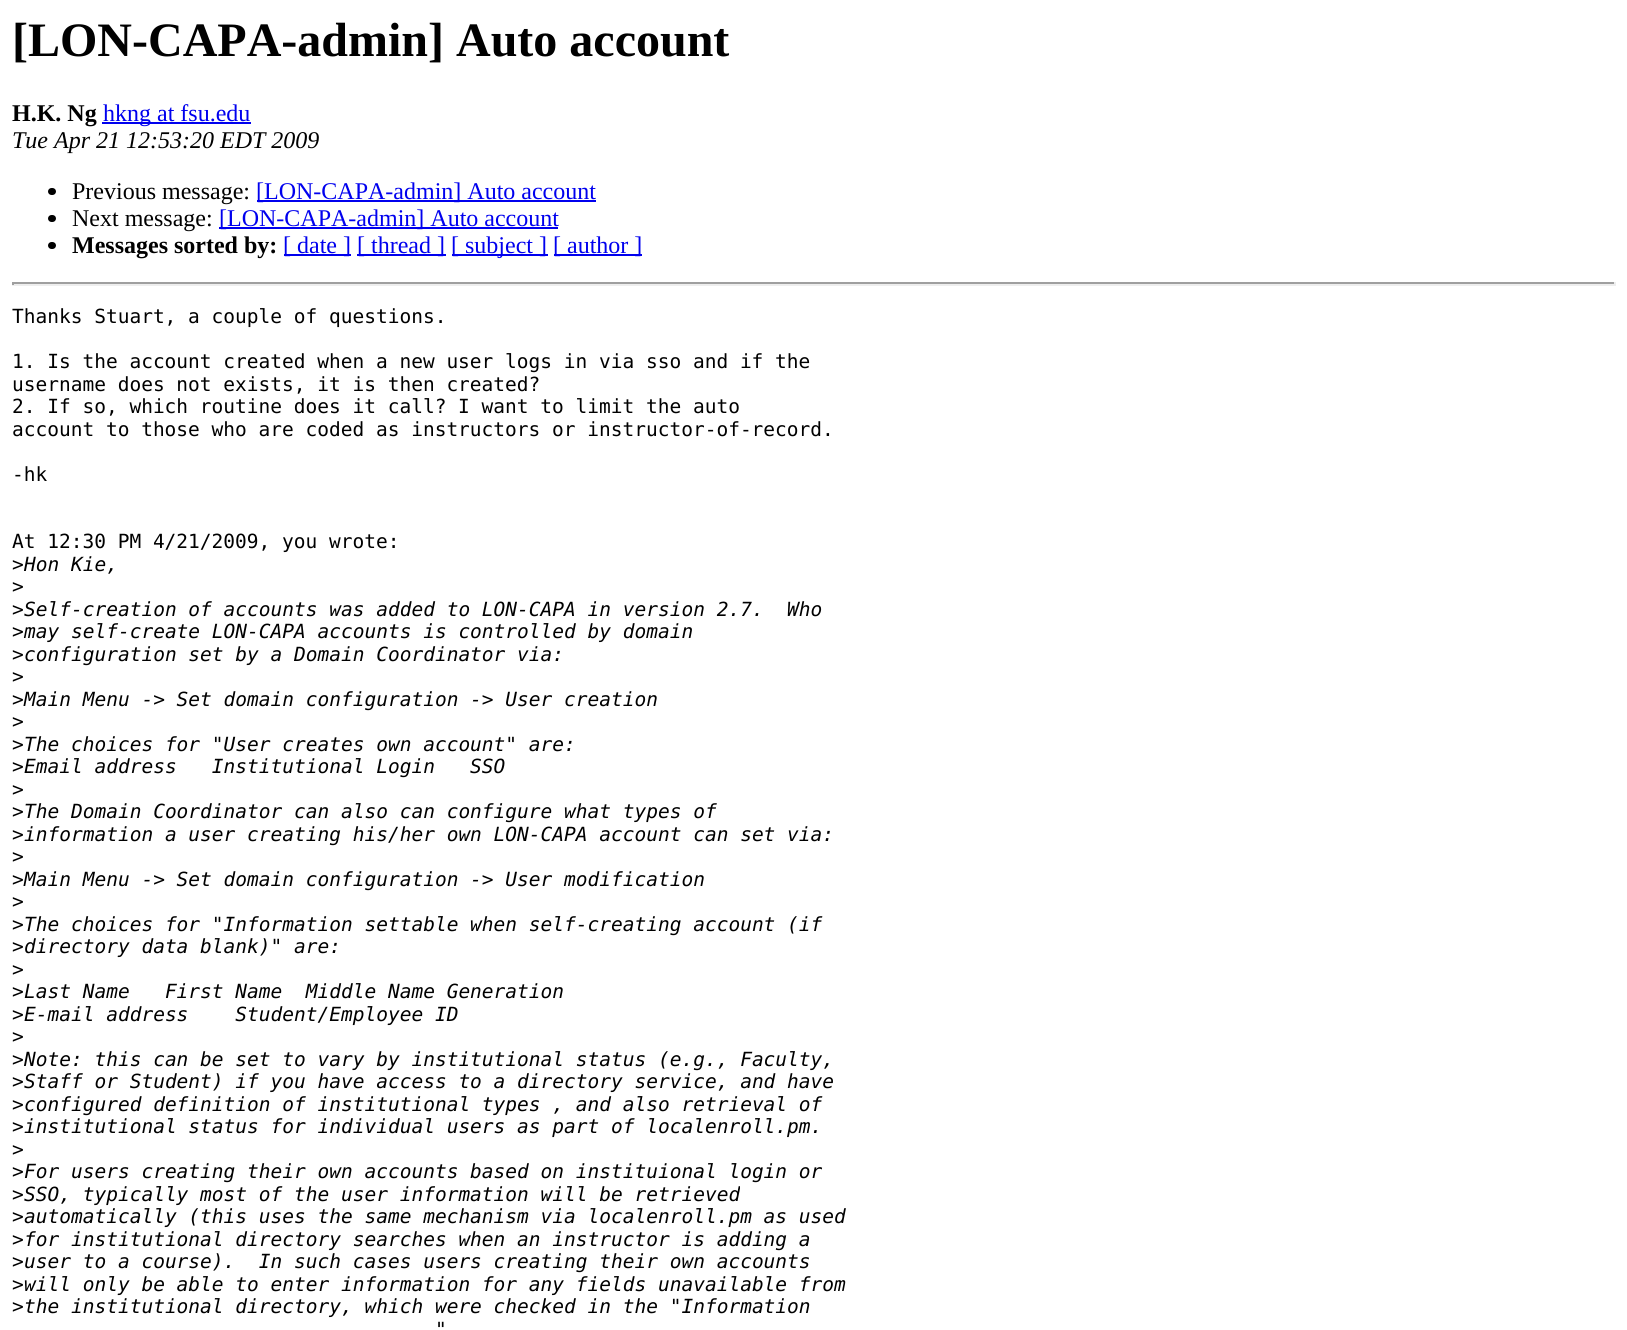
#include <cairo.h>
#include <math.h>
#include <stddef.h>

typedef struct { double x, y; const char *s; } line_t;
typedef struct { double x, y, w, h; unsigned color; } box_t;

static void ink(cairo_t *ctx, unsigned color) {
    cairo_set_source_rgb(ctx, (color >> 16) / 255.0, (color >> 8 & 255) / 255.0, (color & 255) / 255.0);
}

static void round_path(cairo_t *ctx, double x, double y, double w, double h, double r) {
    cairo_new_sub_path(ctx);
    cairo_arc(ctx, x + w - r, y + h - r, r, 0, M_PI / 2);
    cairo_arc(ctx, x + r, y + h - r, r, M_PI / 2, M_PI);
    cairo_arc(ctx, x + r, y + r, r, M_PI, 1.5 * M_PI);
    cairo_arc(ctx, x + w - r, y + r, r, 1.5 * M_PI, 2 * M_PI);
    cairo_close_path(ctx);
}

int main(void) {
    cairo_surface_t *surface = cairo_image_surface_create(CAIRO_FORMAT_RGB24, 1627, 1330);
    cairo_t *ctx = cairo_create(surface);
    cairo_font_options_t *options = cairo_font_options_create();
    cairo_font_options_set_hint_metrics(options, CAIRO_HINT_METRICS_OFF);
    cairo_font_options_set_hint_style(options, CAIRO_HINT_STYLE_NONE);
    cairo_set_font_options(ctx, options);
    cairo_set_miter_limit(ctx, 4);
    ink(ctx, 0xFFFFFF);
    cairo_paint(ctx);
    cairo_select_font_face(ctx, "Liberation Serif", CAIRO_FONT_SLANT_NORMAL, CAIRO_FONT_WEIGHT_BOLD);
    cairo_set_font_size(ctx, 48);
    ink(ctx, 0x000000);
    cairo_move_to(ctx, 12, 56);
    cairo_show_text(ctx, "[LON-CAPA-admin] Auto account");
    cairo_set_font_size(ctx, 24);
    cairo_move_to(ctx, 12, 121);
    cairo_show_text(ctx, "H.K. Ng");
    ink(ctx, 0x0000EE);
    cairo_rectangle(ctx, 102, 122, 149, 2);
    cairo_fill(ctx);
    cairo_select_font_face(ctx, "Liberation Serif", CAIRO_FONT_SLANT_NORMAL, CAIRO_FONT_WEIGHT_NORMAL);
    cairo_move_to(ctx, 103, 121);
    cairo_show_text(ctx, "hkng at fsu.edu");
    cairo_select_font_face(ctx, "Liberation Serif", CAIRO_FONT_SLANT_ITALIC, CAIRO_FONT_WEIGHT_NORMAL);
    ink(ctx, 0x000000);
    cairo_move_to(ctx, 12, 148);
    cairo_show_text(ctx, "Tue Apr 21 12:53:20 EDT 2009");
    round_path(ctx, 48, 188, 8, 7, 3.5);
    cairo_fill(ctx);
    cairo_select_font_face(ctx, "Liberation Serif", CAIRO_FONT_SLANT_NORMAL, CAIRO_FONT_WEIGHT_NORMAL);
    cairo_move_to(ctx, 72, 199);
    cairo_show_text(ctx, "Previous message:");
    ink(ctx, 0x0000EE);
    cairo_rectangle(ctx, 257, 200, 339, 2);
    cairo_fill(ctx);
    cairo_move_to(ctx, 256, 199);
    cairo_show_text(ctx, "[LON-CAPA-admin] Auto account");
    ink(ctx, 0x000000);
    round_path(ctx, 48, 215, 8, 7, 3.5);
    cairo_fill(ctx);
    cairo_move_to(ctx, 72, 226);
    cairo_show_text(ctx, "Next message:");
    ink(ctx, 0x0000EE);
    cairo_rectangle(ctx, 219, 227, 339, 2);
    cairo_fill(ctx);
    cairo_move_to(ctx, 219, 226);
    cairo_show_text(ctx, "[LON-CAPA-admin] Auto account");
    ink(ctx, 0x000000);
    round_path(ctx, 48, 242, 8, 7, 3.5);
    cairo_fill(ctx);
    cairo_select_font_face(ctx, "Liberation Serif", CAIRO_FONT_SLANT_NORMAL, CAIRO_FONT_WEIGHT_BOLD);
    cairo_move_to(ctx, 72, 253);
    cairo_show_text(ctx, "Messages sorted by:");
    ink(ctx, 0x0000EE);
    cairo_rectangle(ctx, 284, 254, 67, 2);
    cairo_fill(ctx);
    cairo_select_font_face(ctx, "Liberation Serif", CAIRO_FONT_SLANT_NORMAL, CAIRO_FONT_WEIGHT_NORMAL);
    cairo_move_to(ctx, 283, 253);
    cairo_show_text(ctx, "[ date ]");
    cairo_rectangle(ctx, 357, 254, 89, 2);
    cairo_fill(ctx);
    cairo_move_to(ctx, 357, 253);
    cairo_show_text(ctx, "[ thread ]");
    cairo_rectangle(ctx, 452, 254, 96, 2);
    cairo_fill(ctx);
    cairo_move_to(ctx, 451, 253);
    cairo_show_text(ctx, "[ subject ]");
    cairo_rectangle(ctx, 554, 254, 88, 2);
    cairo_fill(ctx);
    cairo_move_to(ctx, 553, 253);
    cairo_show_text(ctx, "[ author ]");
    {
        static const box_t items[] = {
            {12, 282, 1604, 2, 0x9F9F9F},
            {1614, 282, 2, 3, 0xEEEEEE},
            {12, 284, 1604, 2, 0xEEEEEE},
            {12, 282, 2, 3, 0x9F9F9F},
        };
        for (size_t i = 0; i < sizeof items / sizeof *items; i++) {
            ink(ctx, items[i].color);
            cairo_rectangle(ctx, items[i].x, items[i].y, items[i].w, items[i].h);
            cairo_fill(ctx);
        }
    }
    cairo_select_font_face(ctx, "DejaVu Sans Mono", CAIRO_FONT_SLANT_NORMAL, CAIRO_FONT_WEIGHT_NORMAL);
    cairo_set_font_size(ctx, 19.5);
    ink(ctx, 0x000000);
    {
        static const line_t items[] = {
            {12, 323, "Thanks Stuart, a couple of questions."},
            {12, 368, "1. Is the account created when a new user logs in via sso and if the"},
            {12, 391, "username does not exists, it is then created?"},
            {12, 413, "2. If so, which routine does it call? I want to limit the auto"},
            {12, 436, "account to those who are coded as instructors or instructor-of-record."},
            {12, 481, "-hk"},
            {12, 548, "At 12:30 PM 4/21/2009, you wrote:"},
            {12, 571, ">"},
        };
        for (size_t i = 0; i < sizeof items / sizeof *items; i++) {
            cairo_move_to(ctx, items[i].x, items[i].y);
            cairo_show_text(ctx, items[i].s);
        }
    }
    cairo_select_font_face(ctx, "DejaVu Sans Mono", CAIRO_FONT_SLANT_ITALIC, CAIRO_FONT_WEIGHT_NORMAL);
    cairo_move_to(ctx, 24, 571);
    cairo_show_text(ctx, "Hon Kie,");
    cairo_select_font_face(ctx, "DejaVu Sans Mono", CAIRO_FONT_SLANT_NORMAL, CAIRO_FONT_WEIGHT_NORMAL);
    cairo_move_to(ctx, 12, 593);
    cairo_show_text(ctx, ">");
    cairo_move_to(ctx, 12, 616);
    cairo_show_text(ctx, ">");
    cairo_select_font_face(ctx, "DejaVu Sans Mono", CAIRO_FONT_SLANT_ITALIC, CAIRO_FONT_WEIGHT_NORMAL);
    cairo_move_to(ctx, 24, 616);
    cairo_show_text(ctx, "Self-creation of accounts was added to LON-CAPA in version 2.7.  Who");
    cairo_select_font_face(ctx, "DejaVu Sans Mono", CAIRO_FONT_SLANT_NORMAL, CAIRO_FONT_WEIGHT_NORMAL);
    cairo_move_to(ctx, 12, 638);
    cairo_show_text(ctx, ">");
    cairo_select_font_face(ctx, "DejaVu Sans Mono", CAIRO_FONT_SLANT_ITALIC, CAIRO_FONT_WEIGHT_NORMAL);
    cairo_move_to(ctx, 24, 638);
    cairo_show_text(ctx, "may self-create LON-CAPA accounts is controlled by domain");
    cairo_select_font_face(ctx, "DejaVu Sans Mono", CAIRO_FONT_SLANT_NORMAL, CAIRO_FONT_WEIGHT_NORMAL);
    cairo_move_to(ctx, 12, 661);
    cairo_show_text(ctx, ">");
    cairo_select_font_face(ctx, "DejaVu Sans Mono", CAIRO_FONT_SLANT_ITALIC, CAIRO_FONT_WEIGHT_NORMAL);
    cairo_move_to(ctx, 24, 661);
    cairo_show_text(ctx, "configuration set by a Domain Coordinator via:");
    cairo_select_font_face(ctx, "DejaVu Sans Mono", CAIRO_FONT_SLANT_NORMAL, CAIRO_FONT_WEIGHT_NORMAL);
    cairo_move_to(ctx, 12, 683);
    cairo_show_text(ctx, ">");
    cairo_move_to(ctx, 12, 706);
    cairo_show_text(ctx, ">");
    cairo_select_font_face(ctx, "DejaVu Sans Mono", CAIRO_FONT_SLANT_ITALIC, CAIRO_FONT_WEIGHT_NORMAL);
    cairo_move_to(ctx, 24, 706);
    cairo_show_text(ctx, "Main Menu -> Set domain configuration -> User creation");
    cairo_select_font_face(ctx, "DejaVu Sans Mono", CAIRO_FONT_SLANT_NORMAL, CAIRO_FONT_WEIGHT_NORMAL);
    cairo_move_to(ctx, 12, 728);
    cairo_show_text(ctx, ">");
    cairo_move_to(ctx, 12, 751);
    cairo_show_text(ctx, ">");
    cairo_select_font_face(ctx, "DejaVu Sans Mono", CAIRO_FONT_SLANT_ITALIC, CAIRO_FONT_WEIGHT_NORMAL);
    cairo_move_to(ctx, 24, 751);
    cairo_show_text(ctx, "The choices for \"User creates own account\" are:");
    cairo_select_font_face(ctx, "DejaVu Sans Mono", CAIRO_FONT_SLANT_NORMAL, CAIRO_FONT_WEIGHT_NORMAL);
    cairo_move_to(ctx, 12, 773);
    cairo_show_text(ctx, ">");
    cairo_select_font_face(ctx, "DejaVu Sans Mono", CAIRO_FONT_SLANT_ITALIC, CAIRO_FONT_WEIGHT_NORMAL);
    cairo_move_to(ctx, 24, 773);
    cairo_show_text(ctx, "Email address   Institutional Login   SSO");
    cairo_select_font_face(ctx, "DejaVu Sans Mono", CAIRO_FONT_SLANT_NORMAL, CAIRO_FONT_WEIGHT_NORMAL);
    cairo_move_to(ctx, 12, 796);
    cairo_show_text(ctx, ">");
    cairo_move_to(ctx, 12, 818);
    cairo_show_text(ctx, ">");
    cairo_select_font_face(ctx, "DejaVu Sans Mono", CAIRO_FONT_SLANT_ITALIC, CAIRO_FONT_WEIGHT_NORMAL);
    cairo_move_to(ctx, 24, 818);
    cairo_show_text(ctx, "The Domain Coordinator can also can configure what types of");
    cairo_select_font_face(ctx, "DejaVu Sans Mono", CAIRO_FONT_SLANT_NORMAL, CAIRO_FONT_WEIGHT_NORMAL);
    cairo_move_to(ctx, 12, 841);
    cairo_show_text(ctx, ">");
    cairo_select_font_face(ctx, "DejaVu Sans Mono", CAIRO_FONT_SLANT_ITALIC, CAIRO_FONT_WEIGHT_NORMAL);
    cairo_move_to(ctx, 24, 841);
    cairo_show_text(ctx, "information a user creating his/her own LON-CAPA account can set via:");
    cairo_select_font_face(ctx, "DejaVu Sans Mono", CAIRO_FONT_SLANT_NORMAL, CAIRO_FONT_WEIGHT_NORMAL);
    cairo_move_to(ctx, 12, 863);
    cairo_show_text(ctx, ">");
    cairo_move_to(ctx, 12, 886);
    cairo_show_text(ctx, ">");
    cairo_select_font_face(ctx, "DejaVu Sans Mono", CAIRO_FONT_SLANT_ITALIC, CAIRO_FONT_WEIGHT_NORMAL);
    cairo_move_to(ctx, 24, 886);
    cairo_show_text(ctx, "Main Menu -> Set domain configuration -> User modification");
    cairo_select_font_face(ctx, "DejaVu Sans Mono", CAIRO_FONT_SLANT_NORMAL, CAIRO_FONT_WEIGHT_NORMAL);
    cairo_move_to(ctx, 12, 908);
    cairo_show_text(ctx, ">");
    cairo_move_to(ctx, 12, 931);
    cairo_show_text(ctx, ">");
    cairo_select_font_face(ctx, "DejaVu Sans Mono", CAIRO_FONT_SLANT_ITALIC, CAIRO_FONT_WEIGHT_NORMAL);
    cairo_move_to(ctx, 24, 931);
    cairo_show_text(ctx, "The choices for \"Information settable when self-creating account (if");
    cairo_select_font_face(ctx, "DejaVu Sans Mono", CAIRO_FONT_SLANT_NORMAL, CAIRO_FONT_WEIGHT_NORMAL);
    cairo_move_to(ctx, 12, 953);
    cairo_show_text(ctx, ">");
    cairo_select_font_face(ctx, "DejaVu Sans Mono", CAIRO_FONT_SLANT_ITALIC, CAIRO_FONT_WEIGHT_NORMAL);
    cairo_move_to(ctx, 24, 953);
    cairo_show_text(ctx, "directory data blank)\" are:");
    cairo_select_font_face(ctx, "DejaVu Sans Mono", CAIRO_FONT_SLANT_NORMAL, CAIRO_FONT_WEIGHT_NORMAL);
    cairo_move_to(ctx, 12, 976);
    cairo_show_text(ctx, ">");
    cairo_move_to(ctx, 12, 998);
    cairo_show_text(ctx, ">");
    cairo_select_font_face(ctx, "DejaVu Sans Mono", CAIRO_FONT_SLANT_ITALIC, CAIRO_FONT_WEIGHT_NORMAL);
    cairo_move_to(ctx, 24, 998);
    cairo_show_text(ctx, "Last Name   First Name  Middle Name Generation");
    cairo_select_font_face(ctx, "DejaVu Sans Mono", CAIRO_FONT_SLANT_NORMAL, CAIRO_FONT_WEIGHT_NORMAL);
    cairo_move_to(ctx, 12, 1021);
    cairo_show_text(ctx, ">");
    cairo_select_font_face(ctx, "DejaVu Sans Mono", CAIRO_FONT_SLANT_ITALIC, CAIRO_FONT_WEIGHT_NORMAL);
    cairo_move_to(ctx, 24, 1021);
    cairo_show_text(ctx, "E-mail address    Student/Employee ID");
    cairo_select_font_face(ctx, "DejaVu Sans Mono", CAIRO_FONT_SLANT_NORMAL, CAIRO_FONT_WEIGHT_NORMAL);
    cairo_move_to(ctx, 12, 1043);
    cairo_show_text(ctx, ">");
    cairo_move_to(ctx, 12, 1066);
    cairo_show_text(ctx, ">");
    cairo_select_font_face(ctx, "DejaVu Sans Mono", CAIRO_FONT_SLANT_ITALIC, CAIRO_FONT_WEIGHT_NORMAL);
    cairo_move_to(ctx, 24, 1066);
    cairo_show_text(ctx, "Note: this can be set to vary by institutional status (e.g., Faculty,");
    cairo_select_font_face(ctx, "DejaVu Sans Mono", CAIRO_FONT_SLANT_NORMAL, CAIRO_FONT_WEIGHT_NORMAL);
    cairo_move_to(ctx, 12, 1088);
    cairo_show_text(ctx, ">");
    cairo_select_font_face(ctx, "DejaVu Sans Mono", CAIRO_FONT_SLANT_ITALIC, CAIRO_FONT_WEIGHT_NORMAL);
    cairo_move_to(ctx, 24, 1088);
    cairo_show_text(ctx, "Staff or Student) if you have access to a directory service, and have");
    cairo_select_font_face(ctx, "DejaVu Sans Mono", CAIRO_FONT_SLANT_NORMAL, CAIRO_FONT_WEIGHT_NORMAL);
    cairo_move_to(ctx, 12, 1111);
    cairo_show_text(ctx, ">");
    cairo_select_font_face(ctx, "DejaVu Sans Mono", CAIRO_FONT_SLANT_ITALIC, CAIRO_FONT_WEIGHT_NORMAL);
    cairo_move_to(ctx, 24, 1111);
    cairo_show_text(ctx, "configured definition of institutional types , and also retrieval of");
    cairo_select_font_face(ctx, "DejaVu Sans Mono", CAIRO_FONT_SLANT_NORMAL, CAIRO_FONT_WEIGHT_NORMAL);
    cairo_move_to(ctx, 12, 1133);
    cairo_show_text(ctx, ">");
    cairo_select_font_face(ctx, "DejaVu Sans Mono", CAIRO_FONT_SLANT_ITALIC, CAIRO_FONT_WEIGHT_NORMAL);
    cairo_move_to(ctx, 24, 1133);
    cairo_show_text(ctx, "institutional status for individual users as part of localenroll.pm.");
    cairo_select_font_face(ctx, "DejaVu Sans Mono", CAIRO_FONT_SLANT_NORMAL, CAIRO_FONT_WEIGHT_NORMAL);
    cairo_move_to(ctx, 12, 1156);
    cairo_show_text(ctx, ">");
    cairo_move_to(ctx, 12, 1178);
    cairo_show_text(ctx, ">");
    cairo_select_font_face(ctx, "DejaVu Sans Mono", CAIRO_FONT_SLANT_ITALIC, CAIRO_FONT_WEIGHT_NORMAL);
    cairo_move_to(ctx, 24, 1178);
    cairo_show_text(ctx, "For users creating their own accounts based on instituional login or");
    cairo_select_font_face(ctx, "DejaVu Sans Mono", CAIRO_FONT_SLANT_NORMAL, CAIRO_FONT_WEIGHT_NORMAL);
    cairo_move_to(ctx, 12, 1201);
    cairo_show_text(ctx, ">");
    cairo_select_font_face(ctx, "DejaVu Sans Mono", CAIRO_FONT_SLANT_ITALIC, CAIRO_FONT_WEIGHT_NORMAL);
    cairo_move_to(ctx, 24, 1201);
    cairo_show_text(ctx, "SSO, typically most of the user information will be retrieved");
    cairo_select_font_face(ctx, "DejaVu Sans Mono", CAIRO_FONT_SLANT_NORMAL, CAIRO_FONT_WEIGHT_NORMAL);
    cairo_move_to(ctx, 12, 1223);
    cairo_show_text(ctx, ">");
    cairo_select_font_face(ctx, "DejaVu Sans Mono", CAIRO_FONT_SLANT_ITALIC, CAIRO_FONT_WEIGHT_NORMAL);
    cairo_move_to(ctx, 24, 1223);
    cairo_show_text(ctx, "automatically (this uses the same mechanism via localenroll.pm as used");
    cairo_select_font_face(ctx, "DejaVu Sans Mono", CAIRO_FONT_SLANT_NORMAL, CAIRO_FONT_WEIGHT_NORMAL);
    cairo_move_to(ctx, 12, 1246);
    cairo_show_text(ctx, ">");
    cairo_select_font_face(ctx, "DejaVu Sans Mono", CAIRO_FONT_SLANT_ITALIC, CAIRO_FONT_WEIGHT_NORMAL);
    cairo_move_to(ctx, 24, 1246);
    cairo_show_text(ctx, "for institutional directory searches when an instructor is adding a");
    cairo_select_font_face(ctx, "DejaVu Sans Mono", CAIRO_FONT_SLANT_NORMAL, CAIRO_FONT_WEIGHT_NORMAL);
    cairo_move_to(ctx, 12, 1268);
    cairo_show_text(ctx, ">");
    cairo_select_font_face(ctx, "DejaVu Sans Mono", CAIRO_FONT_SLANT_ITALIC, CAIRO_FONT_WEIGHT_NORMAL);
    cairo_move_to(ctx, 24, 1268);
    cairo_show_text(ctx, "user to a course).  In such cases users creating their own accounts");
    cairo_select_font_face(ctx, "DejaVu Sans Mono", CAIRO_FONT_SLANT_NORMAL, CAIRO_FONT_WEIGHT_NORMAL);
    cairo_move_to(ctx, 12, 1291);
    cairo_show_text(ctx, ">");
    cairo_select_font_face(ctx, "DejaVu Sans Mono", CAIRO_FONT_SLANT_ITALIC, CAIRO_FONT_WEIGHT_NORMAL);
    cairo_move_to(ctx, 24, 1291);
    cairo_show_text(ctx, "will only be able to enter information for any fields unavailable from");
    cairo_select_font_face(ctx, "DejaVu Sans Mono", CAIRO_FONT_SLANT_NORMAL, CAIRO_FONT_WEIGHT_NORMAL);
    cairo_move_to(ctx, 12, 1313);
    cairo_show_text(ctx, ">");
    cairo_select_font_face(ctx, "DejaVu Sans Mono", CAIRO_FONT_SLANT_ITALIC, CAIRO_FONT_WEIGHT_NORMAL);
    cairo_move_to(ctx, 24, 1313);
    cairo_show_text(ctx, "the institutional directory, which were checked in the \"Information");
    cairo_move_to(ctx, 435, 1336);
    cairo_show_text(ctx, "\"");
    cairo_surface_write_to_png(surface, "image.png");
    cairo_font_options_destroy(options);
    cairo_destroy(ctx);
    cairo_surface_destroy(surface);
    return 0;
}
